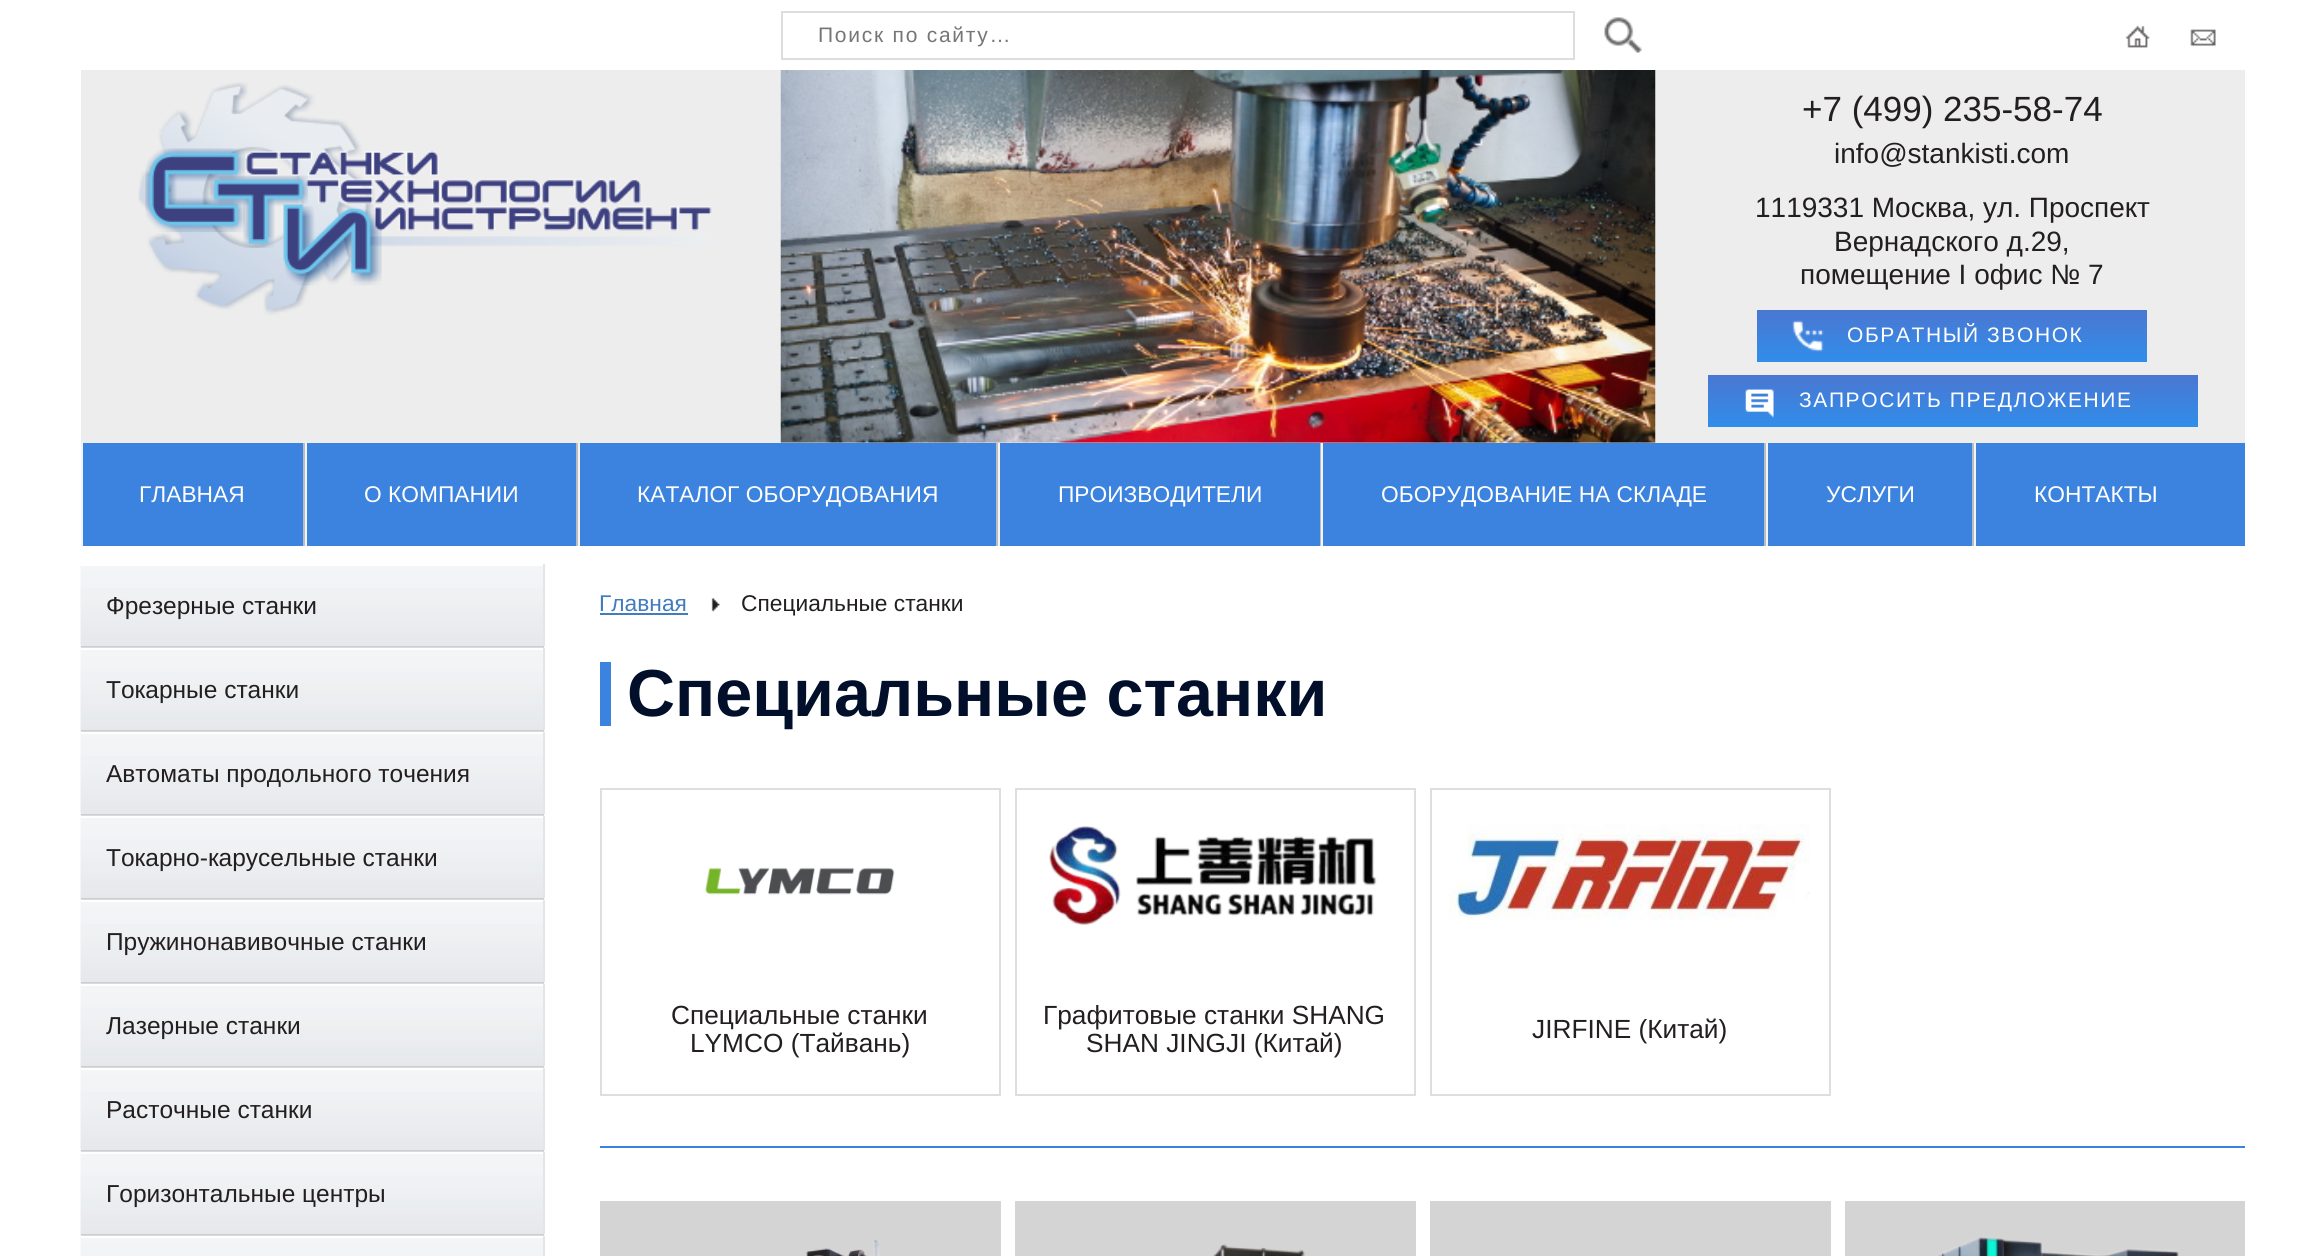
#include <cairo.h>
#include <math.h>
#include <stddef.h>

typedef struct { double x, y; const char *s; } line_t;
typedef struct { double x, y, w, h; unsigned color; } box_t;

static void ink(cairo_t *ctx, unsigned color) {
    cairo_set_source_rgb(ctx, (color >> 16) / 255.0, (color >> 8 & 255) / 255.0, (color & 255) / 255.0);
}

static void write_spaced(cairo_t *ctx, double x, double y, const char *s, double letter, double word) {
    cairo_move_to(ctx, x, y);
    while (*s) {
        char ch[5] = {0};
        int n = 0;
        do ch[n++] = *s++; while ((*s & 0xC0) == 0x80);
        cairo_show_text(ctx, ch);
        cairo_rel_move_to(ctx, letter + word * (*ch == ' '), 0);
    }
}

static void paste(cairo_t *ctx, const char *path, double x, double y, double w, double h) {
    cairo_surface_t *image = cairo_image_surface_create_from_png(path);
    cairo_save(ctx);
    cairo_set_source_surface(ctx, image, x, y);
    cairo_rectangle(ctx, x, y, w, h);
    cairo_fill(ctx);
    cairo_restore(ctx);
    cairo_surface_destroy(image);
}

int main(void) {
    cairo_surface_t *surface = cairo_image_surface_create(CAIRO_FORMAT_RGB24, 2323, 1256);
    cairo_t *ctx = cairo_create(surface);
    cairo_font_options_t *options = cairo_font_options_create();
    cairo_font_options_set_hint_metrics(options, CAIRO_HINT_METRICS_OFF);
    cairo_font_options_set_hint_style(options, CAIRO_HINT_STYLE_NONE);
    cairo_set_font_options(ctx, options);
    cairo_set_miter_limit(ctx, 4);
    cairo_pattern_t *gradient;
    ink(ctx, 0xFFFFFF);
    cairo_paint(ctx);
    ink(ctx, 0xEDEDED);
    cairo_rectangle(ctx, 81, 70, 2164, 373);
    cairo_fill(ctx);
    cairo_rectangle(ctx, 782, 12, 792, 47);
    ink(ctx, 0xDDDDDD);
    cairo_stroke(ctx);
    cairo_select_font_face(ctx, "Liberation Sans", CAIRO_FONT_SLANT_NORMAL, CAIRO_FONT_WEIGHT_NORMAL);
    cairo_set_font_size(ctx, 21);
    ink(ctx, 0x757575);
    write_spaced(ctx, 818, 42, "Поиск по сайту…", 1.75, 0);
    paste(ctx, "media/1.png", 1604, 17, 38, 36);
    paste(ctx, "media/2.png", 2125, 25, 25, 23);
    paste(ctx, "media/3.png", 2190, 29, 26, 17);
    paste(ctx, "media/4.png", 138, 82, 574, 233);
    paste(ctx, "media/5.png", 780, 70, 876, 373);
    cairo_set_font_size(ctx, 35);
    ink(ctx, 0x231F20);
    cairo_move_to(ctx, 1802, 121);
    cairo_show_text(ctx, "+7 (499) 235-58-74");
    cairo_set_font_size(ctx, 28);
    {
        static const line_t items[] = {
            {1834, 163, "info@stankisti.com"},
            {1755, 217, "1119331 Москва, ул. Проспект"},
            {1834, 251, "Вернадского д.29,"},
            {1800, 284, "помещение I офис № 7"},
        };
        for (size_t i = 0; i < sizeof items / sizeof *items; i++) {
            cairo_move_to(ctx, items[i].x, items[i].y);
            cairo_show_text(ctx, items[i].s);
        }
    }
    gradient = cairo_pattern_create_linear(1952, 310, 1952, 362);
    cairo_pattern_add_color_stop_rgba(gradient, 0, 0.29, 0.467, 0.82, 1);
    cairo_pattern_add_color_stop_rgba(gradient, 1, 0.192, 0.553, 0.918, 1);
    cairo_set_source(ctx, gradient);
    cairo_pattern_destroy(gradient);
    cairo_rectangle(ctx, 1757, 310, 390, 52);
    cairo_fill(ctx);
    paste(ctx, "media/6.png", 1792, 320, 32, 32);
    cairo_set_font_size(ctx, 21);
    ink(ctx, 0xFFFFFF);
    write_spaced(ctx, 1847, 342, "ОБРАТНЫЙ ЗВОНОК", 1.6, 0);
    gradient = cairo_pattern_create_linear(1953, 374, 1953, 427);
    cairo_pattern_add_color_stop_rgba(gradient, 0, 0.29, 0.467, 0.82, 1);
    cairo_pattern_add_color_stop_rgba(gradient, 1, 0.192, 0.553, 0.918, 1);
    cairo_set_source(ctx, gradient);
    cairo_pattern_destroy(gradient);
    cairo_rectangle(ctx, 1708, 375, 490, 52);
    cairo_fill(ctx);
    paste(ctx, "media/7.png", 1745, 389, 29, 29);
    ink(ctx, 0xFFFFFF);
    write_spaced(ctx, 1799, 407, "ЗАПРОСИТЬ ПРЕДЛОЖЕНИЕ", 1.6, 0);
    {
        static const box_t items[] = {
            {83, 443, 2162, 103, 0x3B83DF},
            {303, 443, 2, 103, 0xB9BDC1},
            {81, 443, 2, 103, 0xF5F4F4},
        };
        for (size_t i = 0; i < sizeof items / sizeof *items; i++) {
            ink(ctx, items[i].color);
            cairo_rectangle(ctx, items[i].x, items[i].y, items[i].w, items[i].h);
            cairo_fill(ctx);
        }
    }
    cairo_set_font_size(ctx, 22.75);
    ink(ctx, 0xFFFFFF);
    cairo_move_to(ctx, 139, 502);
    cairo_show_text(ctx, "ГЛАВНАЯ");
    ink(ctx, 0xB9BDC1);
    cairo_rectangle(ctx, 576, 443, 2, 103);
    cairo_fill(ctx);
    ink(ctx, 0xF5F4F4);
    cairo_rectangle(ctx, 305, 443, 2, 103);
    cairo_fill(ctx);
    ink(ctx, 0xFFFFFF);
    cairo_move_to(ctx, 364, 502);
    cairo_show_text(ctx, "О КОМПАНИИ");
    ink(ctx, 0xB9BDC1);
    cairo_rectangle(ctx, 996, 443, 2, 103);
    cairo_fill(ctx);
    ink(ctx, 0xF5F4F4);
    cairo_rectangle(ctx, 578, 443, 2, 103);
    cairo_fill(ctx);
    ink(ctx, 0xFFFFFF);
    cairo_move_to(ctx, 637, 502);
    cairo_show_text(ctx, "КАТАЛОГ ОБОРУДОВАНИЯ");
    ink(ctx, 0xB9BDC1);
    cairo_rectangle(ctx, 1320, 443, 1, 103);
    cairo_fill(ctx);
    ink(ctx, 0xF5F4F4);
    cairo_rectangle(ctx, 998, 443, 2, 103);
    cairo_fill(ctx);
    ink(ctx, 0xFFFFFF);
    cairo_move_to(ctx, 1058, 502);
    cairo_show_text(ctx, "ПРОИЗВОДИТЕЛИ");
    ink(ctx, 0xB9BDC1);
    cairo_rectangle(ctx, 1764, 443, 2, 103);
    cairo_fill(ctx);
    ink(ctx, 0xF5F4F4);
    cairo_rectangle(ctx, 1321, 443, 2, 103);
    cairo_fill(ctx);
    ink(ctx, 0xFFFFFF);
    cairo_move_to(ctx, 1381, 502);
    cairo_show_text(ctx, "ОБОРУДОВАНИЕ НА СКЛАДЕ");
    ink(ctx, 0xB9BDC1);
    cairo_rectangle(ctx, 1972, 443, 2, 103);
    cairo_fill(ctx);
    ink(ctx, 0xF5F4F4);
    cairo_rectangle(ctx, 1766, 443, 2, 103);
    cairo_fill(ctx);
    ink(ctx, 0xFFFFFF);
    cairo_move_to(ctx, 1826, 502);
    cairo_show_text(ctx, "УСЛУГИ");
    ink(ctx, 0xF5F4F4);
    cairo_rectangle(ctx, 1974, 443, 2, 103);
    cairo_fill(ctx);
    ink(ctx, 0xFFFFFF);
    cairo_move_to(ctx, 2034, 502);
    cairo_show_text(ctx, "КОНТАКТЫ");
    paste(ctx, "media/8.png", 80, 564, 465, 84);
    {
        static const box_t items[] = {
            {81, 646, 463, 2, 0xCCCFD1},
            {81, 564, 463, 2, 0xFFFFFF},
            {543, 564, 2, 82, 0xE5E5E7},
        };
        for (size_t i = 0; i < sizeof items / sizeof *items; i++) {
            ink(ctx, items[i].color);
            cairo_rectangle(ctx, items[i].x, items[i].y, items[i].w, items[i].h);
            cairo_fill(ctx);
        }
    }
    cairo_set_font_size(ctx, 24.5);
    ink(ctx, 0x231F20);
    cairo_move_to(ctx, 106, 614);
    cairo_show_text(ctx, "Фрезерные станки");
    paste(ctx, "media/9.png", 80, 647, 465, 85);
    {
        static const box_t items[] = {
            {81, 730, 463, 2, 0xCCCFD1},
            {81, 648, 463, 2, 0xFFFFFF},
            {543, 648, 2, 82, 0xE5E5E7},
        };
        for (size_t i = 0; i < sizeof items / sizeof *items; i++) {
            ink(ctx, items[i].color);
            cairo_rectangle(ctx, items[i].x, items[i].y, items[i].w, items[i].h);
            cairo_fill(ctx);
        }
    }
    ink(ctx, 0x231F20);
    cairo_move_to(ctx, 106, 698);
    cairo_show_text(ctx, "Токарные станки");
    paste(ctx, "media/10.png", 80, 731, 465, 85);
    {
        static const box_t items[] = {
            {81, 814, 463, 2, 0xCCCFD1},
            {81, 732, 463, 2, 0xFFFFFF},
            {543, 732, 2, 82, 0xE5E5E7},
        };
        for (size_t i = 0; i < sizeof items / sizeof *items; i++) {
            ink(ctx, items[i].color);
            cairo_rectangle(ctx, items[i].x, items[i].y, items[i].w, items[i].h);
            cairo_fill(ctx);
        }
    }
    ink(ctx, 0x231F20);
    cairo_move_to(ctx, 106, 782);
    cairo_show_text(ctx, "Автоматы продольного точения");
    paste(ctx, "media/9.png", 80, 815, 465, 85);
    {
        static const box_t items[] = {
            {81, 898, 463, 2, 0xCCCFD1},
            {81, 816, 463, 2, 0xFFFFFF},
            {543, 816, 2, 82, 0xE5E5E7},
        };
        for (size_t i = 0; i < sizeof items / sizeof *items; i++) {
            ink(ctx, items[i].color);
            cairo_rectangle(ctx, items[i].x, items[i].y, items[i].w, items[i].h);
            cairo_fill(ctx);
        }
    }
    ink(ctx, 0x231F20);
    cairo_move_to(ctx, 106, 866);
    cairo_show_text(ctx, "Токарно-карусельные станки");
    paste(ctx, "media/9.png", 80, 899, 465, 85);
    {
        static const box_t items[] = {
            {81, 982, 463, 2, 0xCCCFD1},
            {81, 900, 463, 2, 0xFFFFFF},
            {543, 900, 2, 82, 0xE5E5E7},
        };
        for (size_t i = 0; i < sizeof items / sizeof *items; i++) {
            ink(ctx, items[i].color);
            cairo_rectangle(ctx, items[i].x, items[i].y, items[i].w, items[i].h);
            cairo_fill(ctx);
        }
    }
    ink(ctx, 0x231F20);
    cairo_move_to(ctx, 106, 950);
    cairo_show_text(ctx, "Пружинонавивочные станки");
    paste(ctx, "media/9.png", 80, 983, 465, 85);
    {
        static const box_t items[] = {
            {81, 1066, 463, 2, 0xCCCFD1},
            {81, 984, 463, 2, 0xFFFFFF},
            {543, 984, 2, 82, 0xE5E5E7},
        };
        for (size_t i = 0; i < sizeof items / sizeof *items; i++) {
            ink(ctx, items[i].color);
            cairo_rectangle(ctx, items[i].x, items[i].y, items[i].w, items[i].h);
            cairo_fill(ctx);
        }
    }
    ink(ctx, 0x231F20);
    cairo_move_to(ctx, 106, 1034);
    cairo_show_text(ctx, "Лазерные станки");
    paste(ctx, "media/10.png", 80, 1067, 465, 85);
    {
        static const box_t items[] = {
            {81, 1150, 463, 2, 0xCCCFD1},
            {81, 1068, 463, 2, 0xFFFFFF},
            {543, 1068, 2, 82, 0xE5E5E7},
        };
        for (size_t i = 0; i < sizeof items / sizeof *items; i++) {
            ink(ctx, items[i].color);
            cairo_rectangle(ctx, items[i].x, items[i].y, items[i].w, items[i].h);
            cairo_fill(ctx);
        }
    }
    ink(ctx, 0x231F20);
    cairo_move_to(ctx, 106, 1118);
    cairo_show_text(ctx, "Расточные станки");
    paste(ctx, "media/10.png", 80, 1151, 465, 85);
    {
        static const box_t items[] = {
            {81, 1234, 463, 2, 0xCCCFD1},
            {81, 1152, 463, 2, 0xFFFFFF},
            {543, 1152, 2, 82, 0xE5E5E7},
        };
        for (size_t i = 0; i < sizeof items / sizeof *items; i++) {
            ink(ctx, items[i].color);
            cairo_rectangle(ctx, items[i].x, items[i].y, items[i].w, items[i].h);
            cairo_fill(ctx);
        }
    }
    ink(ctx, 0x231F20);
    cairo_move_to(ctx, 106, 1202);
    cairo_show_text(ctx, "Горизонтальные центры");
    paste(ctx, "media/11.png", 80, 1235, 464, 21);
    ink(ctx, 0xFFFFFF);
    cairo_rectangle(ctx, 81, 1236, 463, 2);
    cairo_fill(ctx);
    ink(ctx, 0xE5E5E7);
    cairo_rectangle(ctx, 543, 1236, 2, 20);
    cairo_fill(ctx);
    cairo_set_font_size(ctx, 22.75);
    ink(ctx, 0x427CBF);
    cairo_move_to(ctx, 599, 611);
    cairo_show_text(ctx, "Главная");
    cairo_rectangle(ctx, 600, 613, 88, 2);
    cairo_fill(ctx);
    paste(ctx, "media/12.png", 711, 598, 9, 14);
    ink(ctx, 0x231F20);
    cairo_move_to(ctx, 741, 611);
    cairo_show_text(ctx, "Специальные станки");
    ink(ctx, 0x3B83DF);
    cairo_rectangle(ctx, 600, 662, 11, 64);
    cairo_fill(ctx);
    cairo_select_font_face(ctx, "Liberation Sans", CAIRO_FONT_SLANT_NORMAL, CAIRO_FONT_WEIGHT_BOLD);
    cairo_set_font_size(ctx, 66.5);
    ink(ctx, 0x010F2B);
    cairo_move_to(ctx, 627, 716);
    cairo_show_text(ctx, "Специальные станки");
    ink(ctx, 0x3B83DF);
    cairo_rectangle(ctx, 600, 1146, 1645, 2);
    cairo_fill(ctx);
    cairo_rectangle(ctx, 601, 789, 399, 306);
    ink(ctx, 0xDEDEDE);
    cairo_stroke(ctx);
    paste(ctx, "media/13.png", 705, 867, 190, 28);
    cairo_select_font_face(ctx, "Liberation Sans", CAIRO_FONT_SLANT_NORMAL, CAIRO_FONT_WEIGHT_NORMAL);
    cairo_set_font_size(ctx, 26.25);
    ink(ctx, 0x231F20);
    cairo_move_to(ctx, 671, 1024);
    cairo_show_text(ctx, "Специальные станки");
    cairo_move_to(ctx, 690, 1052);
    cairo_show_text(ctx, "LYMCO (Тайвань)");
    cairo_rectangle(ctx, 1016, 789, 399, 306);
    ink(ctx, 0xDEDEDE);
    cairo_stroke(ctx);
    paste(ctx, "media/14.png", 1049, 826, 328, 100);
    ink(ctx, 0x231F20);
    cairo_move_to(ctx, 1043, 1024);
    cairo_show_text(ctx, "Графитовые станки SHANG");
    cairo_move_to(ctx, 1086, 1052);
    cairo_show_text(ctx, "SHAN JINGJI (Китай)");
    cairo_rectangle(ctx, 1431, 789, 399, 306);
    ink(ctx, 0xDEDEDE);
    cairo_stroke(ctx);
    paste(ctx, "media/15.png", 1449, 824, 361, 97);
    ink(ctx, 0x231F20);
    cairo_move_to(ctx, 1532, 1038);
    cairo_show_text(ctx, "JIRFINE (Китай)");
    ink(ctx, 0xD4D4D4);
    cairo_rectangle(ctx, 600, 1201, 401, 55);
    cairo_fill(ctx);
    paste(ctx, "media/16.png", 806, 1239, 74, 17);
    cairo_rectangle(ctx, 1015, 1201, 401, 55);
    cairo_fill(ctx);
    paste(ctx, "media/17.png", 1213, 1244, 92, 12);
    cairo_rectangle(ctx, 1430, 1201, 401, 55);
    cairo_fill(ctx);
    cairo_rectangle(ctx, 1845, 1201, 400, 55);
    cairo_fill(ctx);
    paste(ctx, "media/18.png", 1938, 1237, 241, 19);
    cairo_surface_write_to_png(surface, "image.png");
    cairo_font_options_destroy(options);
    cairo_destroy(ctx);
    cairo_surface_destroy(surface);
    return 0;
}
